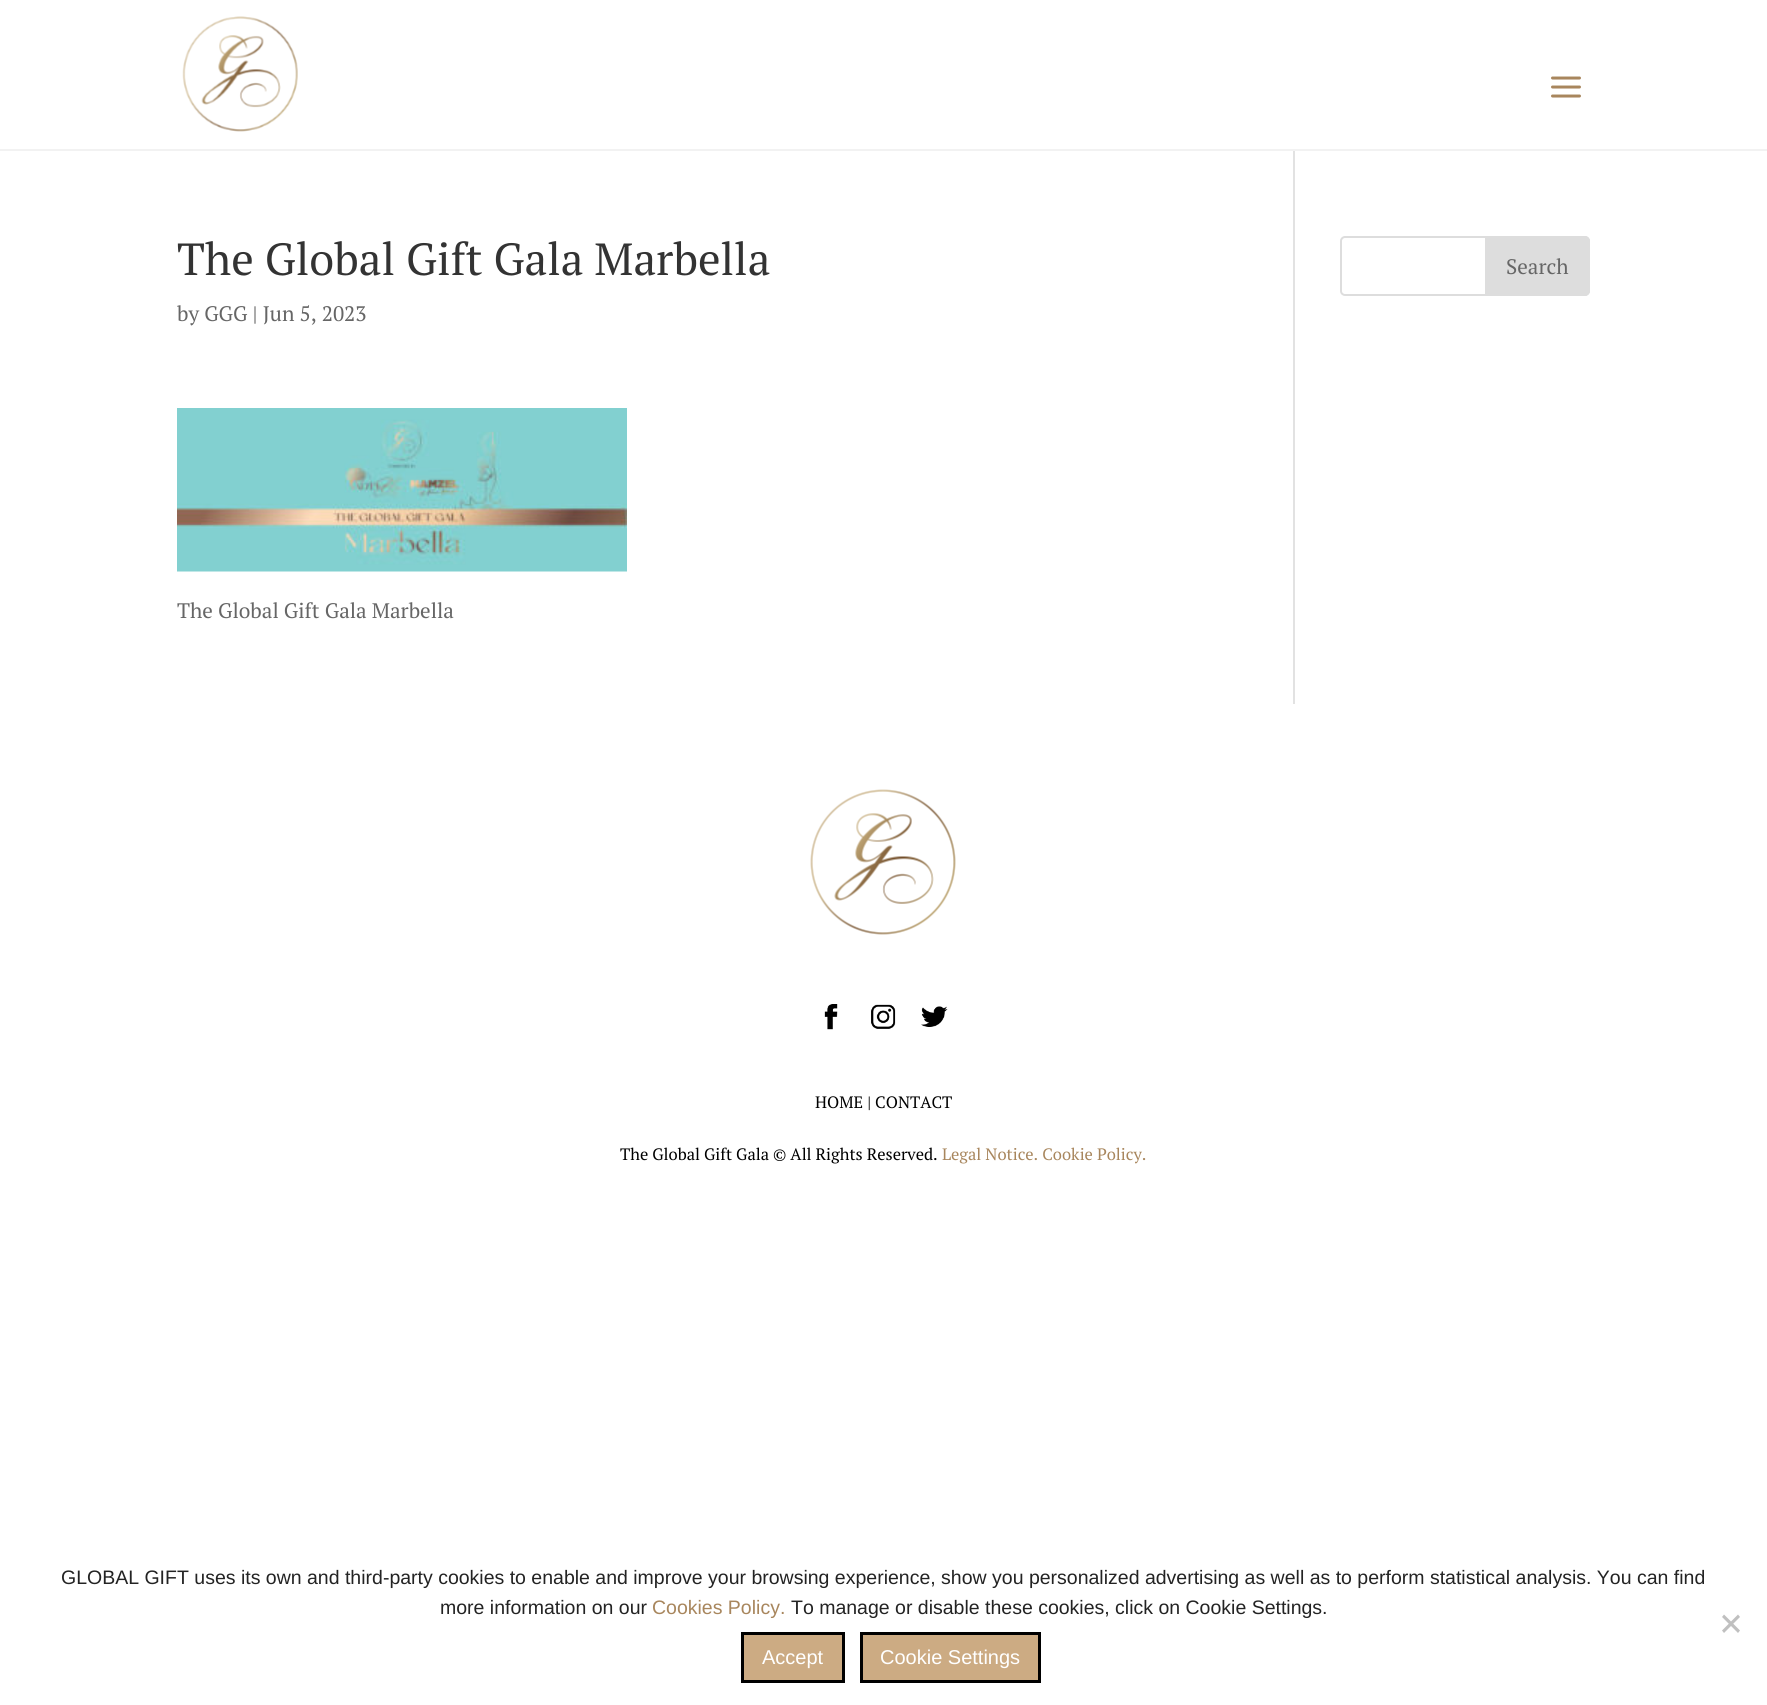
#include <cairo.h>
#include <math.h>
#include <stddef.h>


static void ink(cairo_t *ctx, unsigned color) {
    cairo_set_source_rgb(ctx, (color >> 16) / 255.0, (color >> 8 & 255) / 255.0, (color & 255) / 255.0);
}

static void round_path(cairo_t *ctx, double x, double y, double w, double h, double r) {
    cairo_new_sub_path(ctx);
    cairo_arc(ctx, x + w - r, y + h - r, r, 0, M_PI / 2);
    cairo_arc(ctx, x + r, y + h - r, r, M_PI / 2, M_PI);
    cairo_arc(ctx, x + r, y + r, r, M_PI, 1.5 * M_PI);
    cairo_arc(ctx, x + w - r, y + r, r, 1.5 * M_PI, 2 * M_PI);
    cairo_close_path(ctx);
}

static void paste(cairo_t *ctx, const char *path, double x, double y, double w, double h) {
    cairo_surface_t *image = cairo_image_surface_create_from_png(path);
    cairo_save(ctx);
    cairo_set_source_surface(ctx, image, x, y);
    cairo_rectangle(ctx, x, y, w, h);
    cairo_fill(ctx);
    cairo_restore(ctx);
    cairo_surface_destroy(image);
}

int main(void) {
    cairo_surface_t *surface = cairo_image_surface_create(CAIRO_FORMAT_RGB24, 1767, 1705);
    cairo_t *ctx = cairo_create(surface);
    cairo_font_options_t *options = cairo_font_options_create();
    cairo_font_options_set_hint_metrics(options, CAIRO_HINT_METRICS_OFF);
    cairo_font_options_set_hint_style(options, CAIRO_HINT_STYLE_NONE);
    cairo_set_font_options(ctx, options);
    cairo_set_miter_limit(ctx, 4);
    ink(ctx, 0xFFFFFF);
    cairo_paint(ctx);
    ink(ctx, 0xE2E2E2);
    cairo_rectangle(ctx, 1293, 149, 2, 555);
    cairo_fill(ctx);
    ink(ctx, 0xF2F2F2);
    cairo_rectangle(ctx, 0, 149, 1767, 2);
    cairo_fill(ctx);
    paste(ctx, "media/1.png", 182, 16, 116, 116);
    paste(ctx, "media/2.png", 1551, 76, 30, 22);
    cairo_select_font_face(ctx, "PT Serif", CAIRO_FONT_SLANT_NORMAL, CAIRO_FONT_WEIGHT_NORMAL);
    cairo_set_font_size(ctx, 45);
    ink(ctx, 0x333333);
    cairo_move_to(ctx, 177, 275);
    cairo_show_text(ctx, "The Global Gift Gala Marbella");
    cairo_set_font_size(ctx, 21);
    ink(ctx, 0x666666);
    cairo_move_to(ctx, 177, 321);
    cairo_show_text(ctx, "by GGG | Jun 5, 2023");
    paste(ctx, "media/3.png", 177, 408, 450, 164);
    cairo_move_to(ctx, 177, 618);
    cairo_show_text(ctx, "The Global Gift Gala Marbella");
    round_path(ctx, 1341, 237, 248, 58, 4);
    ink(ctx, 0xDDDDDD);
    cairo_stroke(ctx);
    cairo_new_path(ctx);
    cairo_move_to(ctx, 1486, 237);
    cairo_line_to(ctx, 1585, 237);
    cairo_curve_to(ctx, 1587, 237, 1589, 239, 1589, 241);
    cairo_line_to(ctx, 1589, 291);
    cairo_curve_to(ctx, 1589, 293, 1587, 295, 1585, 295);
    cairo_line_to(ctx, 1486, 295);
    cairo_close_path(ctx);
    cairo_fill_preserve(ctx);
    cairo_stroke(ctx);
    ink(ctx, 0x666666);
    cairo_move_to(ctx, 1506, 274);
    cairo_show_text(ctx, "Search");
    paste(ctx, "media/4.png", 810, 789, 146, 146);
    paste(ctx, "media/5.png", 824, 1004, 14, 26);
    paste(ctx, "media/6.png", 871, 1004, 25, 25);
    paste(ctx, "media/7.png", 921, 1006, 27, 21);
    cairo_set_font_size(ctx, 16.5);
    ink(ctx, 0x000000);
    cairo_move_to(ctx, 815, 1108);
    cairo_show_text(ctx, "HOME | CONTACT");
    cairo_move_to(ctx, 620, 1160);
    cairo_show_text(ctx, "The Global Gift Gala © All Rights Reserved.");
    ink(ctx, 0xA8865D);
    cairo_move_to(ctx, 942, 1160);
    cairo_show_text(ctx, "Legal Notice. Cookie Policy.");
    cairo_select_font_face(ctx, "Liberation Sans", CAIRO_FONT_SLANT_NORMAL, CAIRO_FONT_WEIGHT_NORMAL);
    cairo_set_font_size(ctx, 19.5);
    ink(ctx, 0x232323);
    cairo_move_to(ctx, 61, 1584);
    cairo_show_text(ctx, "GLOBAL GIFT uses its own and third-party cookies to enable and improve your browsing experience, show you personalized advertising as well as to perform statistical analysis. You can find");
    cairo_move_to(ctx, 440, 1614);
    cairo_show_text(ctx, "more information on our");
    ink(ctx, 0xA8865D);
    cairo_move_to(ctx, 652, 1614);
    cairo_show_text(ctx, "Cookies Policy.");
    ink(ctx, 0x232323);
    cairo_move_to(ctx, 791, 1614);
    cairo_show_text(ctx, "To manage or disable these cookies, click on Cookie Settings.");
    ink(ctx, 0xC0C0C0);
    cairo_new_path(ctx);
    cairo_move_to(ctx, 1738, 1614.5);
    cairo_line_to(ctx, 1740, 1617);
    cairo_line_to(ctx, 1724, 1633);
    cairo_line_to(ctx, 1722, 1630.5);
    cairo_close_path(ctx);
    cairo_fill(ctx);
    cairo_new_path(ctx);
    cairo_move_to(ctx, 1722, 1617);
    cairo_line_to(ctx, 1724, 1614.5);
    cairo_line_to(ctx, 1740, 1630.5);
    cairo_line_to(ctx, 1738, 1633);
    cairo_close_path(ctx);
    cairo_fill(ctx);
    ink(ctx, 0xCCAB83);
    cairo_rectangle(ctx, 742.5, 1633.5, 101, 48);
    cairo_fill_preserve(ctx);
    ink(ctx, 0x000000);
    cairo_set_line_width(ctx, 3);
    cairo_stroke(ctx);
    cairo_set_font_size(ctx, 20);
    ink(ctx, 0xFFFFFF);
    cairo_move_to(ctx, 762, 1664);
    cairo_show_text(ctx, "Accept");
    ink(ctx, 0xCCAB83);
    cairo_rectangle(ctx, 861.5, 1633.5, 178, 48);
    cairo_fill_preserve(ctx);
    ink(ctx, 0x000000);
    cairo_stroke(ctx);
    ink(ctx, 0xFFFFFF);
    cairo_move_to(ctx, 880, 1664);
    cairo_show_text(ctx, "Cookie Settings");
    cairo_surface_write_to_png(surface, "image.png");
    cairo_font_options_destroy(options);
    cairo_destroy(ctx);
    cairo_surface_destroy(surface);
    return 0;
}
